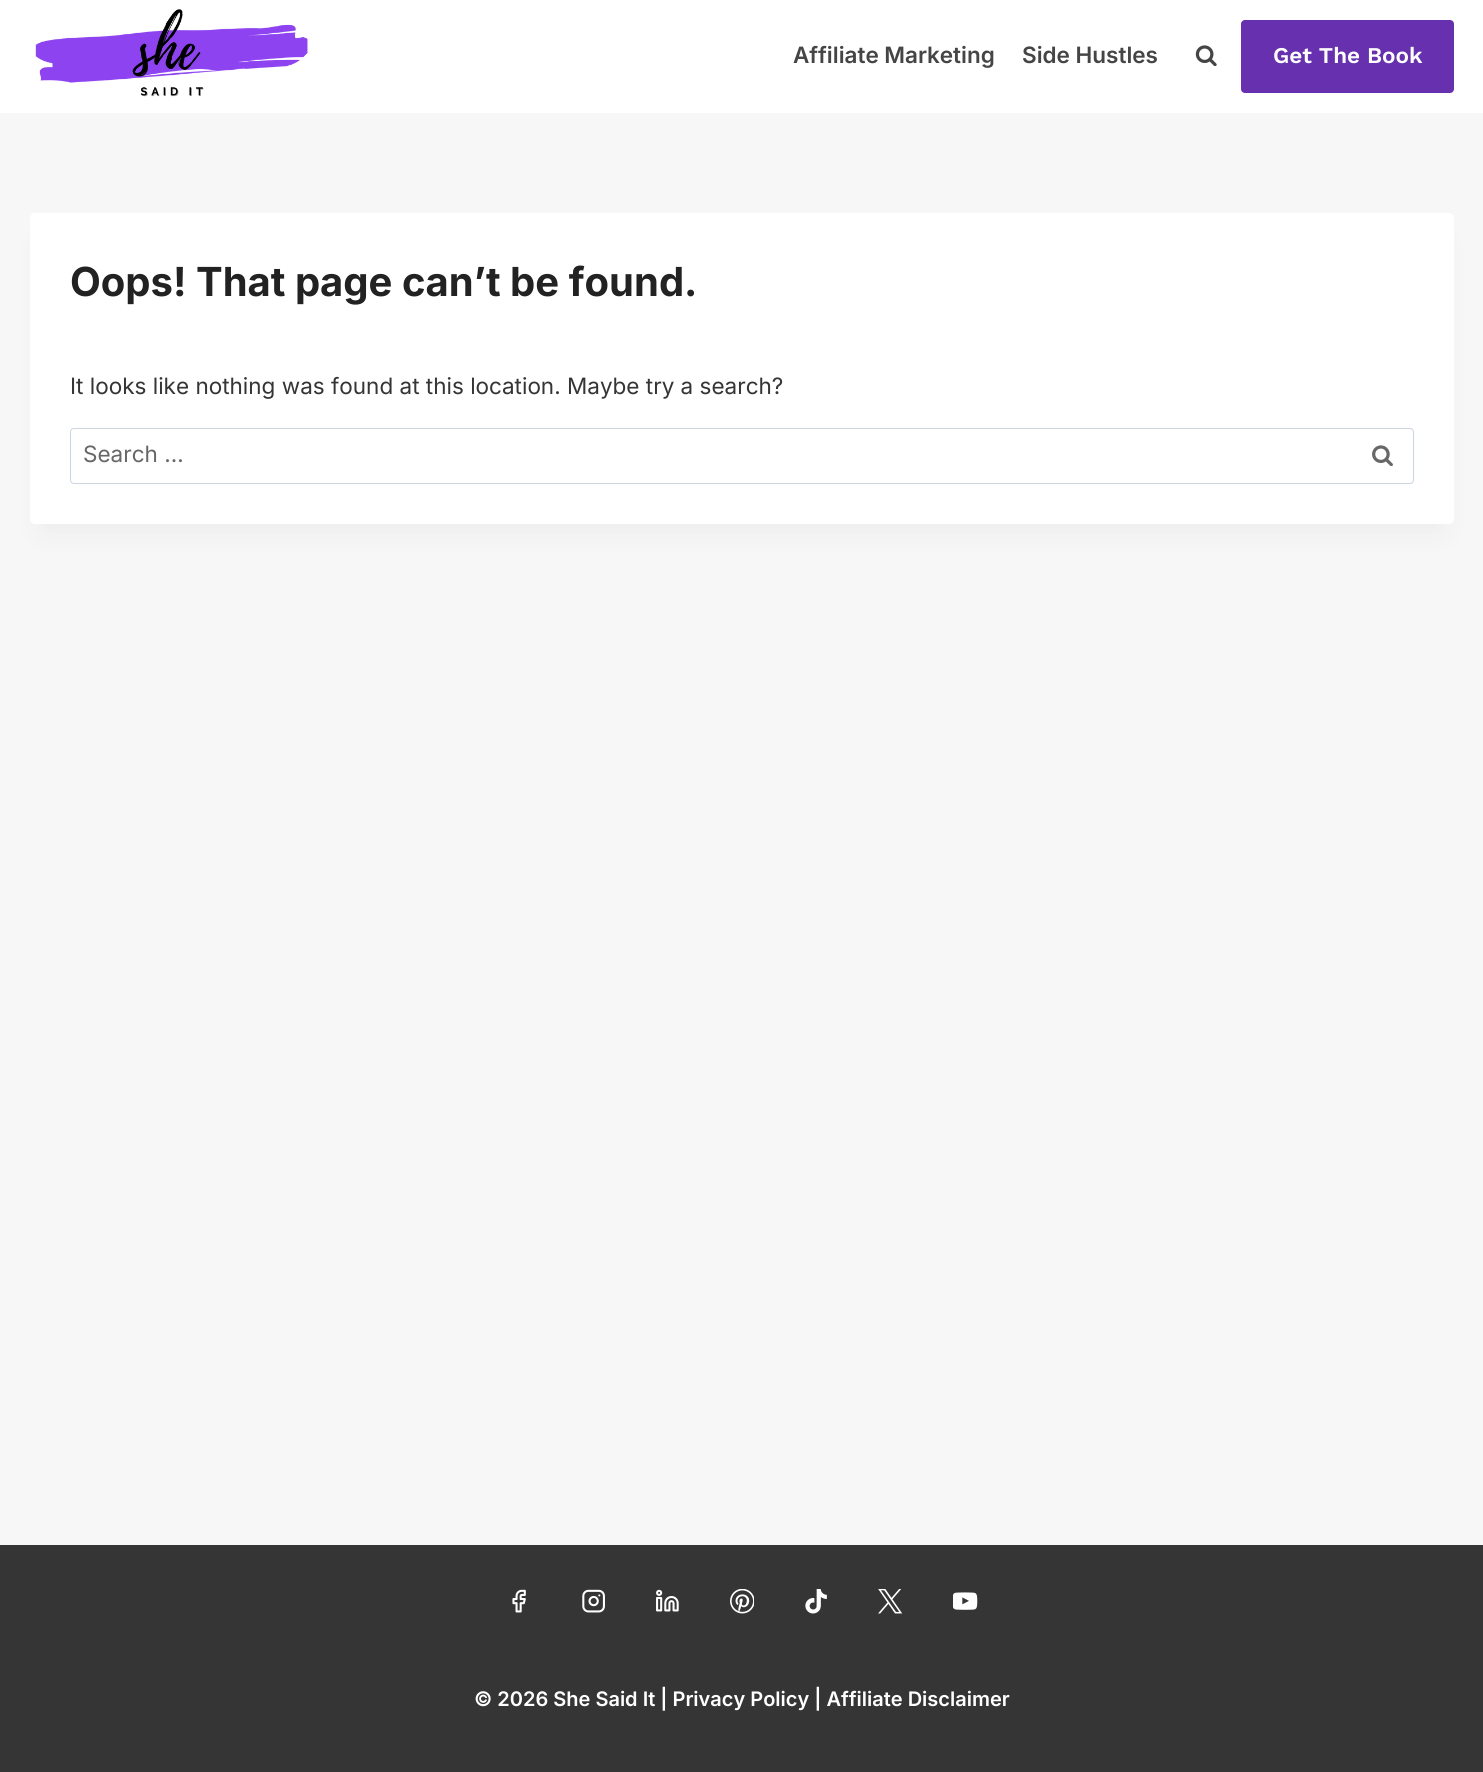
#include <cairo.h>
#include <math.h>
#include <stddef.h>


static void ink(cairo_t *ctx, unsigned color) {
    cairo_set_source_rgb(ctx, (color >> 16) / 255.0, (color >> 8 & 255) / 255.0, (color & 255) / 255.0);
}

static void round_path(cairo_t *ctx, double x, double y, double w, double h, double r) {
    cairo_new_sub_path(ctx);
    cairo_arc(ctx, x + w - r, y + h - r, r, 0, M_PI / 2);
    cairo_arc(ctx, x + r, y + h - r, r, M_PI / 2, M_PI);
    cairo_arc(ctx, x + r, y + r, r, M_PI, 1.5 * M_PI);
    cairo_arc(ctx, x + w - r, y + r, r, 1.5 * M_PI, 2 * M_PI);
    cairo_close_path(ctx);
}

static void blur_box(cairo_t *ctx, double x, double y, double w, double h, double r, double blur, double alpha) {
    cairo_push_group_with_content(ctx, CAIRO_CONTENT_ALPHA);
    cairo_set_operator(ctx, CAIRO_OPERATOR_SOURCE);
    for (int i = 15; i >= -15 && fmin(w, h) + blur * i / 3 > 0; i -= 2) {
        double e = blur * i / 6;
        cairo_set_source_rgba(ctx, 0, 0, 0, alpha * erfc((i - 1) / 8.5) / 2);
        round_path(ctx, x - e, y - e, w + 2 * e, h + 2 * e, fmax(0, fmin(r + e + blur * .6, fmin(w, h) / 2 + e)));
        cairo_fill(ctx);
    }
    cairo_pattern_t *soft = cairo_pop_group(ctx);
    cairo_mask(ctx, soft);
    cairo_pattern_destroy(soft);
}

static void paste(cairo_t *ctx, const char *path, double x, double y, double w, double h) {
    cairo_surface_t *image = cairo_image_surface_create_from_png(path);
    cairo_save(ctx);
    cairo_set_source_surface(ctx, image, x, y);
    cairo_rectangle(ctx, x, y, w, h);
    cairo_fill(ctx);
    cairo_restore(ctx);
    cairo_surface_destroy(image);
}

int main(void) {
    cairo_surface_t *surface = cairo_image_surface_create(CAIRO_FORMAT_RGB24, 1483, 1772);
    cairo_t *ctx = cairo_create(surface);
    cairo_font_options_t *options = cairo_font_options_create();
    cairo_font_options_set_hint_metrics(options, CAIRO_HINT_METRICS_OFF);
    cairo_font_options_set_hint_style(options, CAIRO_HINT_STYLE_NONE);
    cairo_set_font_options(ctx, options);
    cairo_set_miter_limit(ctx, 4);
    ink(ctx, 0xF7F7F7);
    cairo_paint(ctx);
    ink(ctx, 0xFFFFFF);
    cairo_rectangle(ctx, 0, 0, 1483, 113);
    cairo_fill(ctx);
    paste(ctx, "media/1.png", 35, 9, 273, 88);
    cairo_select_font_face(ctx, "Inter SemiBold", CAIRO_FONT_SLANT_NORMAL, CAIRO_FONT_WEIGHT_NORMAL);
    cairo_set_font_size(ctx, 22.5);
    ink(ctx, 0x454545);
    cairo_move_to(ctx, 793, 63);
    cairo_show_text(ctx, "Affiliate Marketing");
    cairo_move_to(ctx, 1022, 63);
    cairo_show_text(ctx, "Side Hustles");
    paste(ctx, "media/2.png", 1195, 45, 22, 21);
    ink(ctx, 0x6630AE);
    round_path(ctx, 1241, 20, 213, 73, 4);
    cairo_fill(ctx);
    cairo_select_font_face(ctx, "Work Sans SemiBold", CAIRO_FONT_SLANT_NORMAL, CAIRO_FONT_WEIGHT_NORMAL);
    ink(ctx, 0xFFFFFF);
    cairo_move_to(ctx, 1273, 63);
    cairo_show_text(ctx, "Get The Book");
    ink(ctx, 0x000000);
    blur_box(ctx, 43, 244, 1398, 286, 0, 15.5, 0.05);
    ink(ctx, 0xFFFFFF);
    round_path(ctx, 30, 213, 1424, 311, 5);
    cairo_fill(ctx);
    cairo_select_font_face(ctx, "Inter", CAIRO_FONT_SLANT_NORMAL, CAIRO_FONT_WEIGHT_BOLD);
    cairo_set_font_size(ctx, 40);
    ink(ctx, 0x222222);
    cairo_move_to(ctx, 70, 296);
    cairo_show_text(ctx, "Oops! That page can’t be found.");
    cairo_select_font_face(ctx, "Inter", CAIRO_FONT_SLANT_NORMAL, CAIRO_FONT_WEIGHT_NORMAL);
    cairo_set_font_size(ctx, 22.5);
    ink(ctx, 0x353535);
    cairo_move_to(ctx, 70, 394);
    cairo_show_text(ctx, "It looks like nothing was found at this location. Maybe try a search?");
    round_path(ctx, 70.5, 428.5, 1343, 55, 3.5);
    ink(ctx, 0xCBD5E0);
    cairo_set_line_width(ctx, 1);
    cairo_stroke(ctx);
    ink(ctx, 0x676767);
    cairo_move_to(ctx, 83, 462);
    cairo_show_text(ctx, "Search …");
    paste(ctx, "media/3.png", 1372, 445, 21, 21);
    ink(ctx, 0x353535);
    cairo_rectangle(ctx, 0, 1545, 1483, 227);
    cairo_fill(ctx);
    paste(ctx, "media/4.png", 512, 1589, 14, 24);
    paste(ctx, "media/5.png", 582, 1589, 23, 24);
    paste(ctx, "media/6.png", 656, 1589, 23, 23);
    paste(ctx, "media/7.png", 730, 1589, 24, 25);
    paste(ctx, "media/8.png", 805, 1589, 22, 25);
    paste(ctx, "media/9.png", 878, 1589, 25, 25);
    paste(ctx, "media/10.png", 953, 1592, 25, 18);
    cairo_select_font_face(ctx, "Inter SemiBold", CAIRO_FONT_SLANT_NORMAL, CAIRO_FONT_WEIGHT_NORMAL);
    cairo_set_font_size(ctx, 20);
    ink(ctx, 0xFFFFFF);
    cairo_move_to(ctx, 474, 1706);
    cairo_show_text(ctx, "© 2026 She Said It | Privacy Policy | Affiliate Disclaimer");
    cairo_surface_write_to_png(surface, "image.png");
    cairo_font_options_destroy(options);
    cairo_destroy(ctx);
    cairo_surface_destroy(surface);
    return 0;
}
